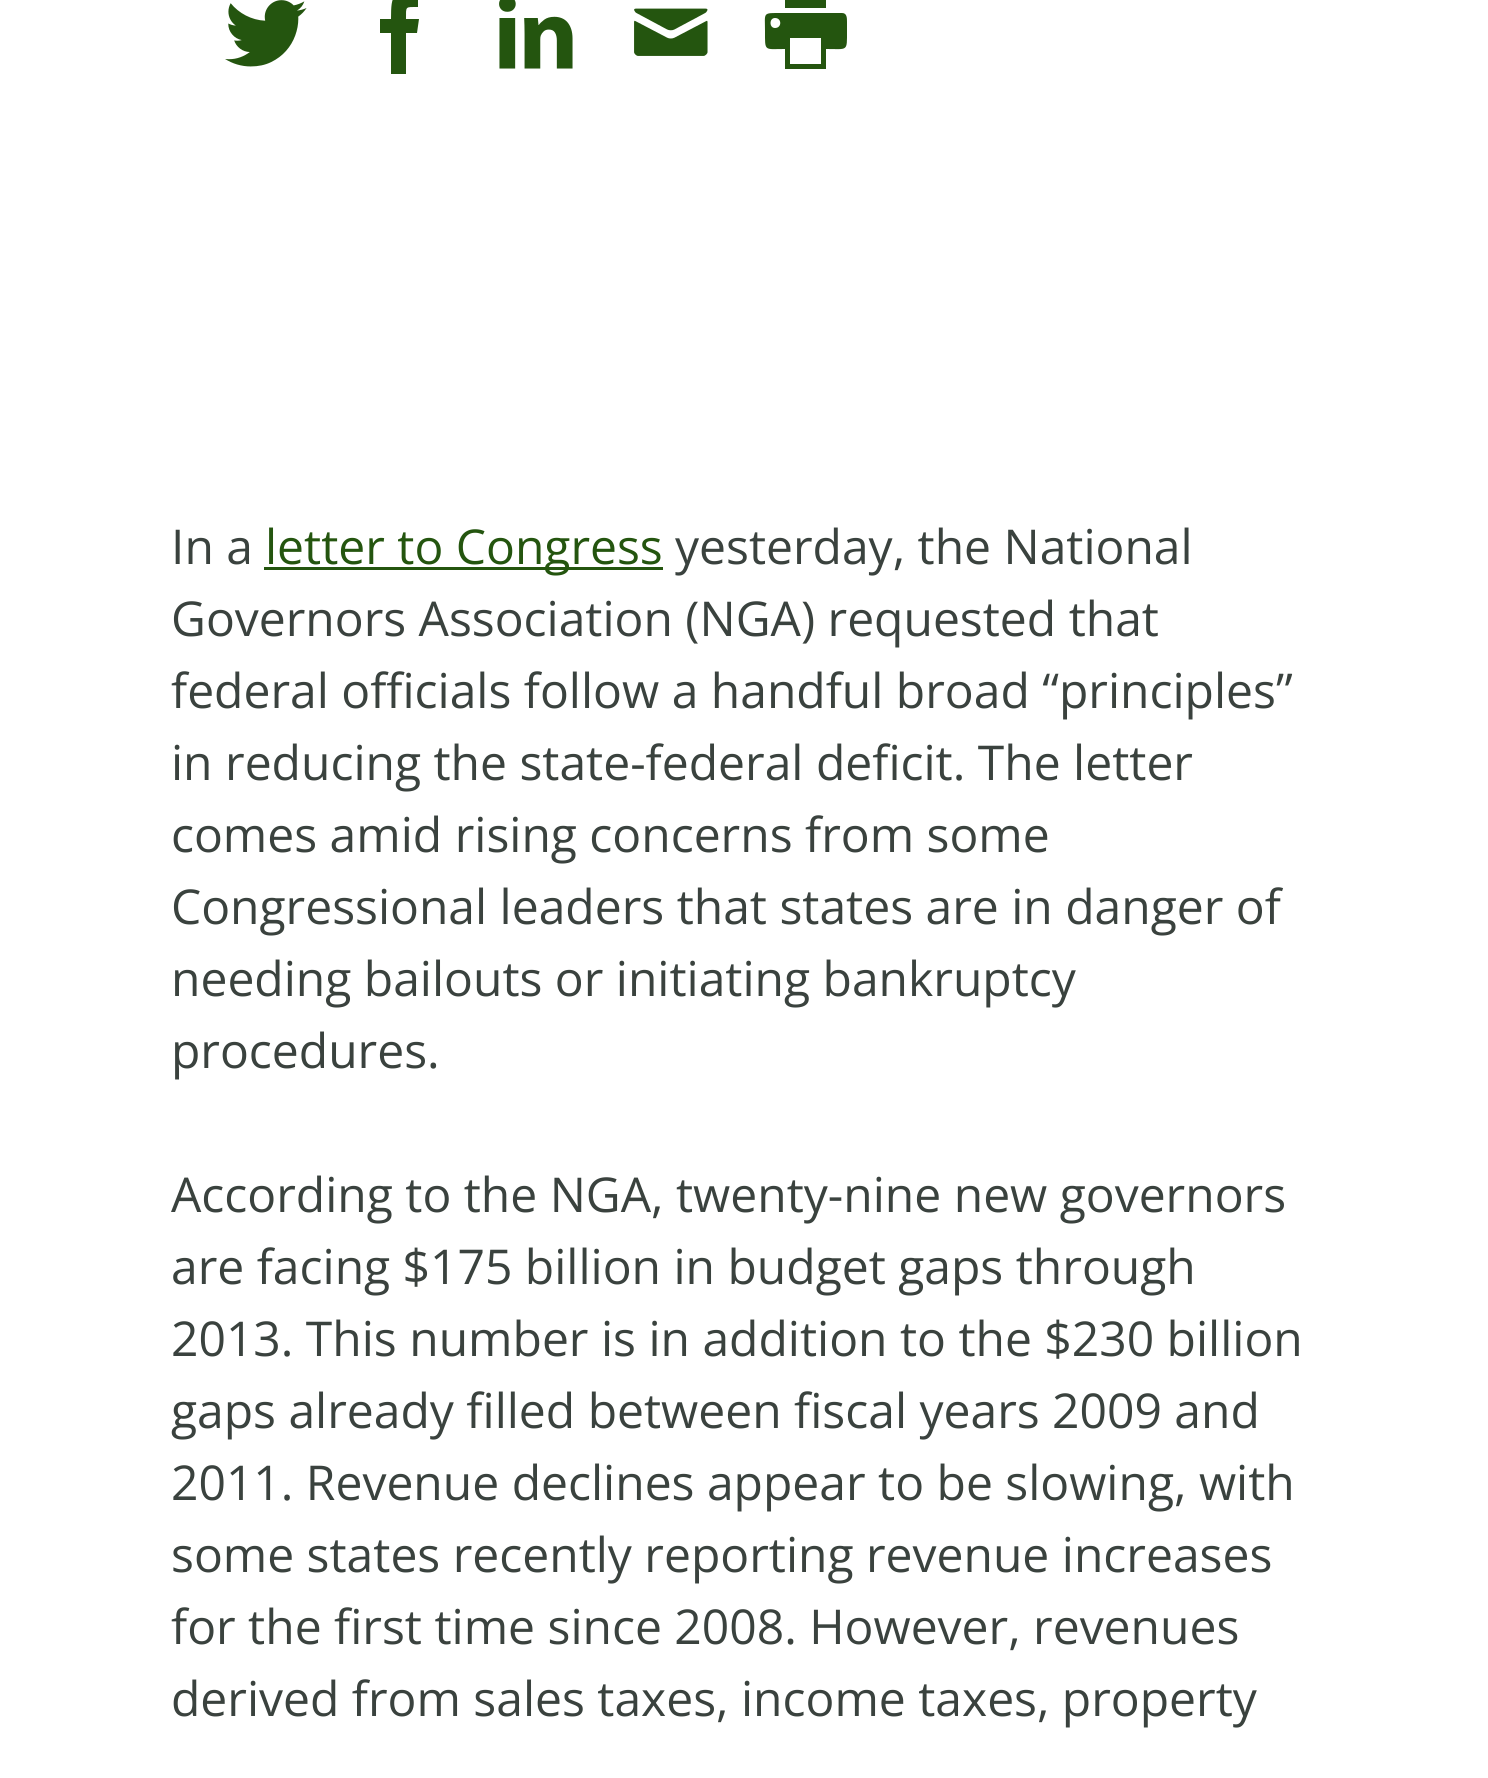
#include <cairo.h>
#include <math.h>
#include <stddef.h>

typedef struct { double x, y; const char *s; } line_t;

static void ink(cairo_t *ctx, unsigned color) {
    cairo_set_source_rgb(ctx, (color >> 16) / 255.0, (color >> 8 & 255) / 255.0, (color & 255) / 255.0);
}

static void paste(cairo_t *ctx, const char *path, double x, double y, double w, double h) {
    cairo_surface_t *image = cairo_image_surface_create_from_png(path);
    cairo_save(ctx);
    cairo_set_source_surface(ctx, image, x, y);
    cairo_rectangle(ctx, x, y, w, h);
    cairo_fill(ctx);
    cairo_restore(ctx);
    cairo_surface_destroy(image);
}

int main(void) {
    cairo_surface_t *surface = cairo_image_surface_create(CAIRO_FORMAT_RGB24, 1488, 1778);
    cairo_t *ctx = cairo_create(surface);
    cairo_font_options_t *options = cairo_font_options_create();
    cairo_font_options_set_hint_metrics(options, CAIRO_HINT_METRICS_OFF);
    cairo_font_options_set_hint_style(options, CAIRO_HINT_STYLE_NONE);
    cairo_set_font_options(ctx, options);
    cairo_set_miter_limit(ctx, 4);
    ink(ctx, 0xFFFFFF);
    cairo_paint(ctx);
    paste(ctx, "media/1.png", 225, 0, 82, 67);
    ink(ctx, 0x24550F);
    cairo_new_path(ctx);
    cairo_move_to(ctx, 406, 74);
    cairo_line_to(ctx, 391, 74);
    cairo_line_to(ctx, 391, 33);
    cairo_line_to(ctx, 380, 33);
    cairo_line_to(ctx, 380, 19);
    cairo_line_to(ctx, 391, 19);
    cairo_curve_to(ctx, 391, -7, 393, -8, 418, -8);
    cairo_line_to(ctx, 418, 7);
    cairo_curve_to(ctx, 405, 7, 406, 6, 406, 19);
    cairo_line_to(ctx, 419, 19);
    cairo_line_to(ctx, 417, 33);
    cairo_line_to(ctx, 406, 33);
    cairo_close_path(ctx);
    cairo_fill(ctx);
    paste(ctx, "media/2.png", 499, 0, 74, 69);
    paste(ctx, "media/3.png", 634, 8, 74, 48);
    cairo_new_path(ctx);
    cairo_move_to(ctx, 785, -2);
    cairo_line_to(ctx, 826, -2);
    cairo_line_to(ctx, 826, 8);
    cairo_line_to(ctx, 785, 8);
    cairo_close_path(ctx);
    cairo_move_to(ctx, 842, 13);
    cairo_line_to(ctx, 782, 13);
    cairo_curve_to(ctx, 762, 13, 765, 12, 765, 31);
    cairo_curve_to(ctx, 765, 52, 764, 49, 785, 49);
    cairo_line_to(ctx, 785, 69);
    cairo_line_to(ctx, 826, 69);
    cairo_line_to(ctx, 826, 49);
    cairo_curve_to(ctx, 848, 49, 847, 52, 847, 31);
    cairo_line_to(ctx, 847, 22);
    cairo_curve_to(ctx, 847, 18, 847, 13, 842, 13);
    cairo_close_path(ctx);
    cairo_move_to(ctx, 775, 28);
    cairo_curve_to(ctx, 769, 28, 769, 18, 775, 18);
    cairo_curve_to(ctx, 782, 18, 782, 28, 775, 28);
    cairo_close_path(ctx);
    cairo_move_to(ctx, 821, 64);
    cairo_line_to(ctx, 790, 64);
    cairo_line_to(ctx, 790, 38);
    cairo_line_to(ctx, 821, 38);
    cairo_close_path(ctx);
    cairo_fill(ctx);
    cairo_select_font_face(ctx, "Open Sans", CAIRO_FONT_SLANT_NORMAL, CAIRO_FONT_WEIGHT_NORMAL);
    cairo_set_font_size(ctx, 48);
    ink(ctx, 0x3A423E);
    cairo_move_to(ctx, 171, 564);
    cairo_show_text(ctx, "In a");
    ink(ctx, 0x24550F);
    cairo_rectangle(ctx, 264, 567, 399, 3);
    cairo_fill(ctx);
    cairo_move_to(ctx, 265, 564);
    cairo_show_text(ctx, "letter to Congress");
    ink(ctx, 0x3A423E);
    {
        static const line_t items[] = {
            {675, 564, "yesterday, the National"},
            {171, 636, "Governors Association (NGA) requested that"},
            {171, 708, "federal officials follow a handful broad “principles”"},
            {171, 780, "in reducing the state-federal deficit. The letter"},
            {171, 852, "comes amid rising concerns from some"},
            {171, 924, "Congressional leaders that states are in danger of"},
            {171, 996, "needing bailouts or initiating bankruptcy"},
            {171, 1068, "procedures."},
            {171, 1212, "According to the NGA, twenty-nine new governors"},
            {171, 1284, "are facing $175 billion in budget gaps through"},
            {171, 1356, "2013. This number is in addition to the $230 billion"},
            {171, 1428, "gaps already filled between fiscal years 2009 and"},
            {171, 1500, "2011. Revenue declines appear to be slowing, with"},
            {171, 1572, "some states recently reporting revenue increases"},
            {171, 1644, "for the first time since 2008. However, revenues"},
            {171, 1716, "derived from sales taxes, income taxes, property"},
        };
        for (size_t i = 0; i < sizeof items / sizeof *items; i++) {
            cairo_move_to(ctx, items[i].x, items[i].y);
            cairo_show_text(ctx, items[i].s);
        }
    }
    cairo_surface_write_to_png(surface, "image.png");
    cairo_font_options_destroy(options);
    cairo_destroy(ctx);
    cairo_surface_destroy(surface);
    return 0;
}
